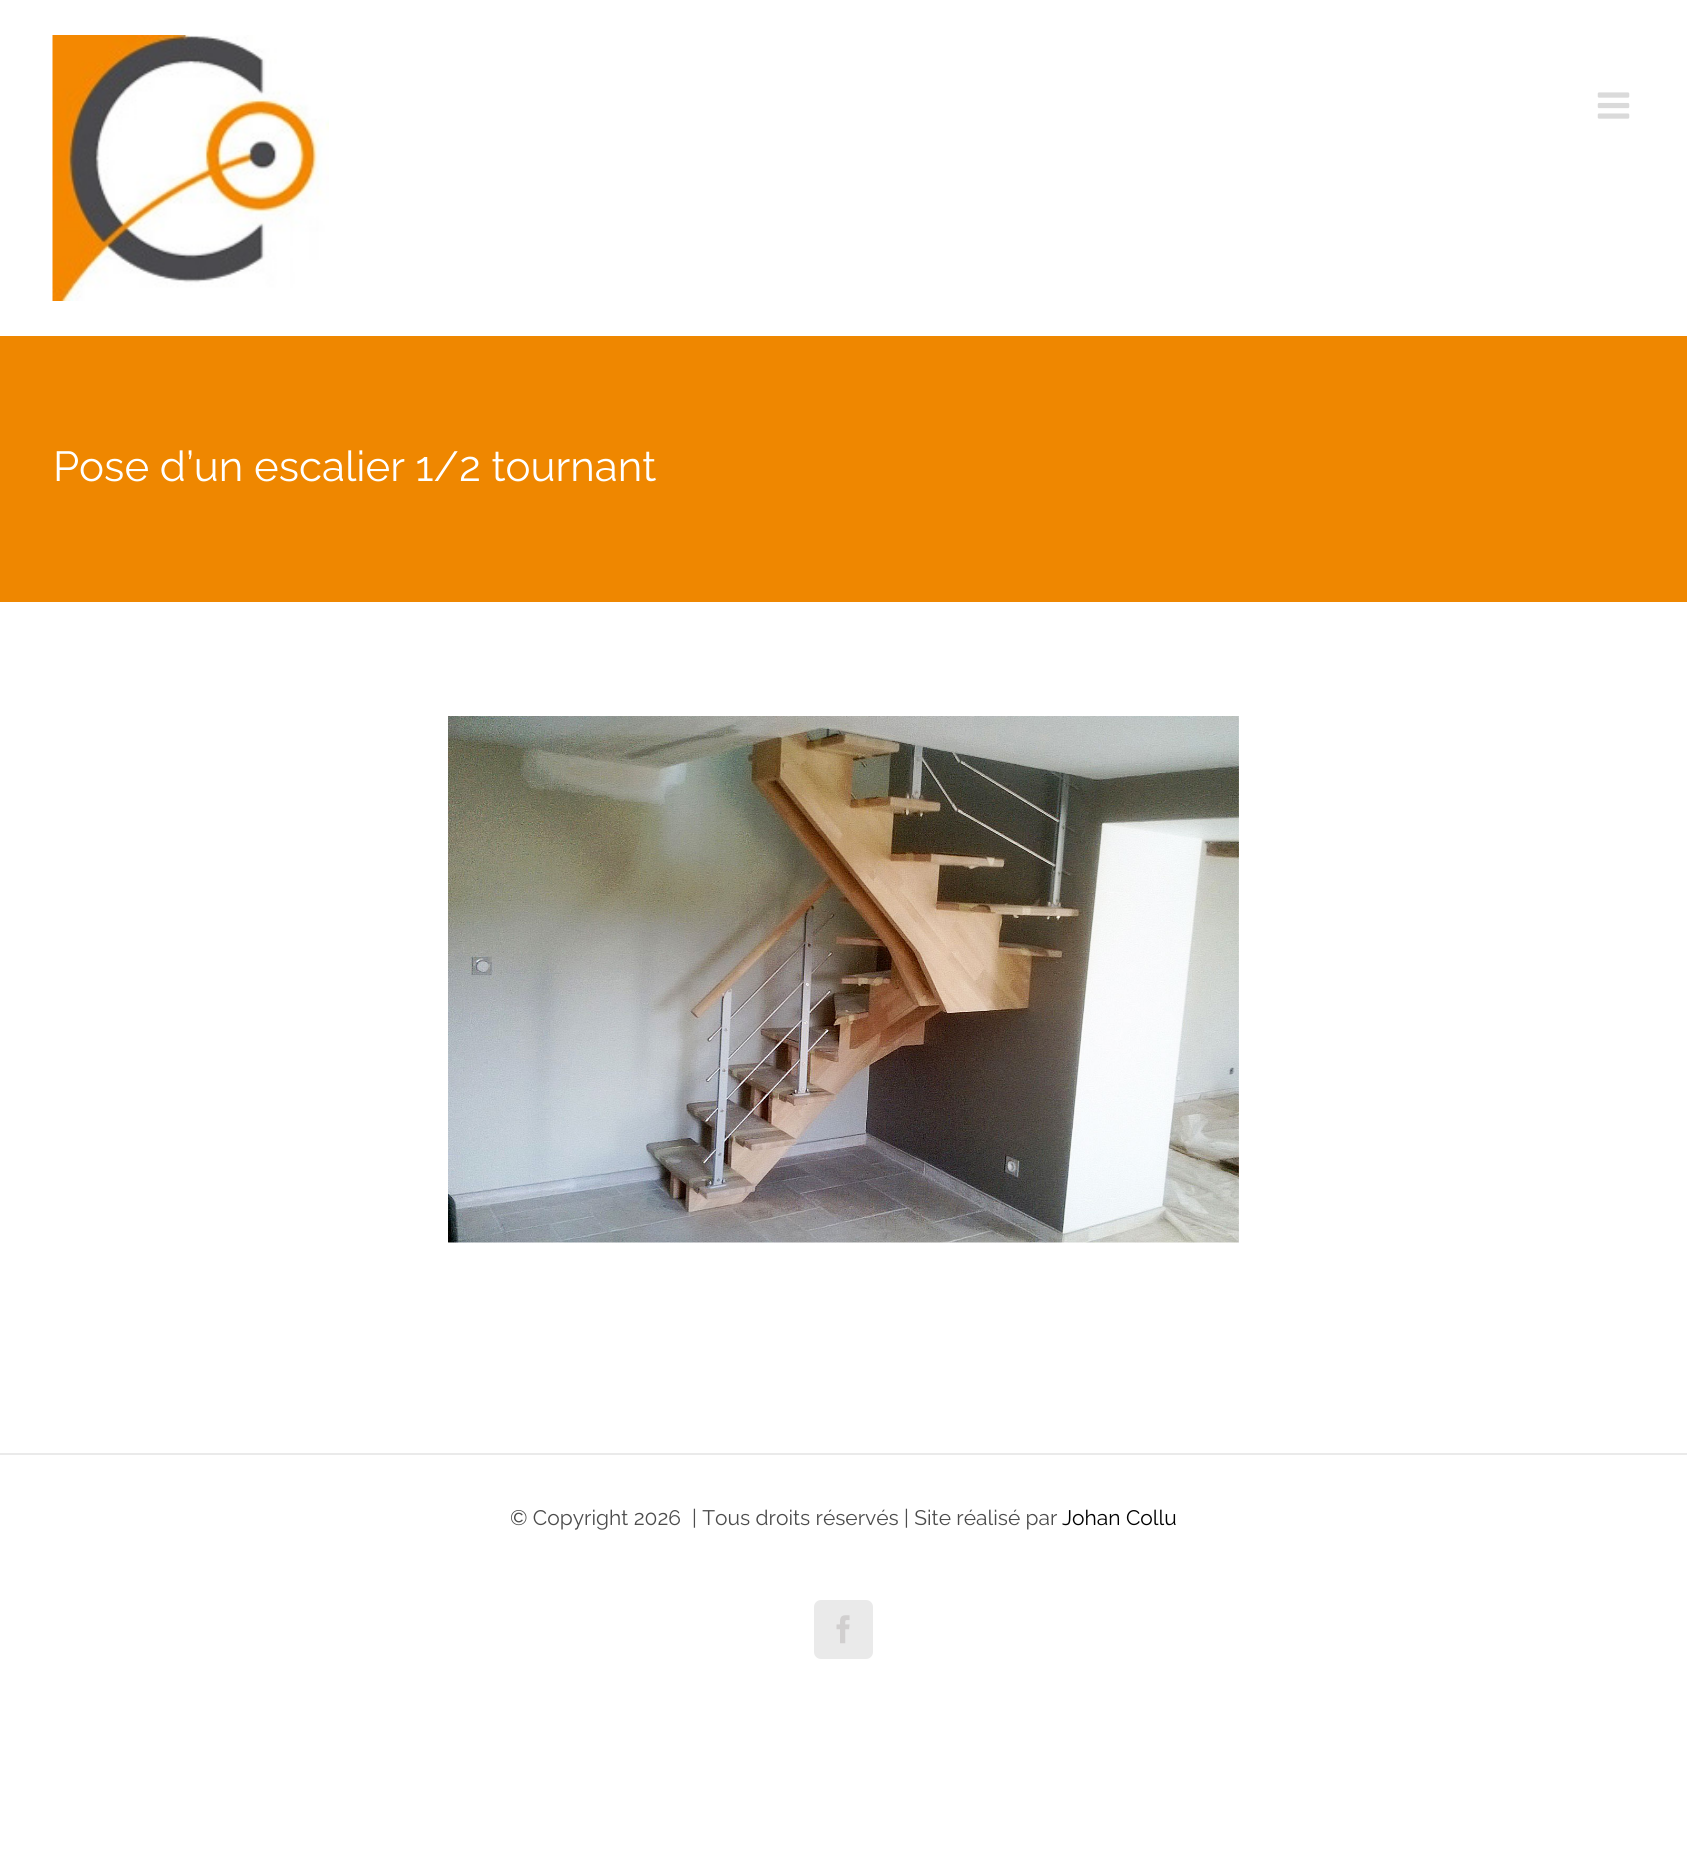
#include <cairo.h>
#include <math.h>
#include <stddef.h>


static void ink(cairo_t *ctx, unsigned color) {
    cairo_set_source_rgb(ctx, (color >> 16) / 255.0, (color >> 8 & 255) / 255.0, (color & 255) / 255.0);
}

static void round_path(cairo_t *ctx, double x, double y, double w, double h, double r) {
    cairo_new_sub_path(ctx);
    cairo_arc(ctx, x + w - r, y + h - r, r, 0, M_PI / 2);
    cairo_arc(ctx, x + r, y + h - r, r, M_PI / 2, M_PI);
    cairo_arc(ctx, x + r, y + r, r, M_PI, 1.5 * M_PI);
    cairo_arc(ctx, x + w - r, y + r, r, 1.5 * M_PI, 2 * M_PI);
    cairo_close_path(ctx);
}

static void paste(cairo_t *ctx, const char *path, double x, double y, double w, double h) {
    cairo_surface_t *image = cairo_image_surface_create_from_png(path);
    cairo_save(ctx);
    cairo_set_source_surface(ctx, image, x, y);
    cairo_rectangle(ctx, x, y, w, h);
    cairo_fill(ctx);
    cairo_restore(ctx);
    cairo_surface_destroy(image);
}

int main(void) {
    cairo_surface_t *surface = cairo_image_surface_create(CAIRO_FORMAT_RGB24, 1687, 1859);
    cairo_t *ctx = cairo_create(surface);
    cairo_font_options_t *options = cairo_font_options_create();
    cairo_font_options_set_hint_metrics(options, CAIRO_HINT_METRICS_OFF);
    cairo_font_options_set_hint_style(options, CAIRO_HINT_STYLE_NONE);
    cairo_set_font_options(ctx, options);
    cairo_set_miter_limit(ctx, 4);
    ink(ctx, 0xFFFFFF);
    cairo_paint(ctx);
    paste(ctx, "media/1.png", 52, 35, 277, 266);
    paste(ctx, "media/2.png", 1597, 92, 33, 27);
    ink(ctx, 0xEF8700);
    cairo_rectangle(ctx, 0, 336, 1687, 266);
    cairo_fill(ctx);
    cairo_select_font_face(ctx, "Raleway Thin", CAIRO_FONT_SLANT_NORMAL, CAIRO_FONT_WEIGHT_NORMAL);
    cairo_set_font_size(ctx, 42);
    ink(ctx, 0xFFFFFF);
    cairo_move_to(ctx, 53, 481);
    cairo_show_text(ctx, "Pose d’un escalier 1/2 tournant");
    paste(ctx, "media/3.png", 448, 716, 791, 527);
    ink(ctx, 0xEAEAEA);
    cairo_rectangle(ctx, 0, 1453, 1687, 2);
    cairo_fill(ctx);
    cairo_set_font_size(ctx, 21);
    ink(ctx, 0x4C4C4C);
    cairo_move_to(ctx, 510, 1525);
    cairo_show_text(ctx, "© Copyright 2026");
    cairo_move_to(ctx, 692, 1525);
    cairo_show_text(ctx, "| Tous droits réservés | Site réalisé par");
    ink(ctx, 0x000000);
    cairo_move_to(ctx, 1062, 1525);
    cairo_show_text(ctx, "Johan Collu");
    ink(ctx, 0xEAEAEA);
    round_path(ctx, 815, 1601, 57, 57, 6);
    cairo_fill_preserve(ctx);
    cairo_stroke(ctx);
    paste(ctx, "media/4.png", 836, 1615, 14, 29);
    cairo_surface_write_to_png(surface, "image.png");
    cairo_font_options_destroy(options);
    cairo_destroy(ctx);
    cairo_surface_destroy(surface);
    return 0;
}
